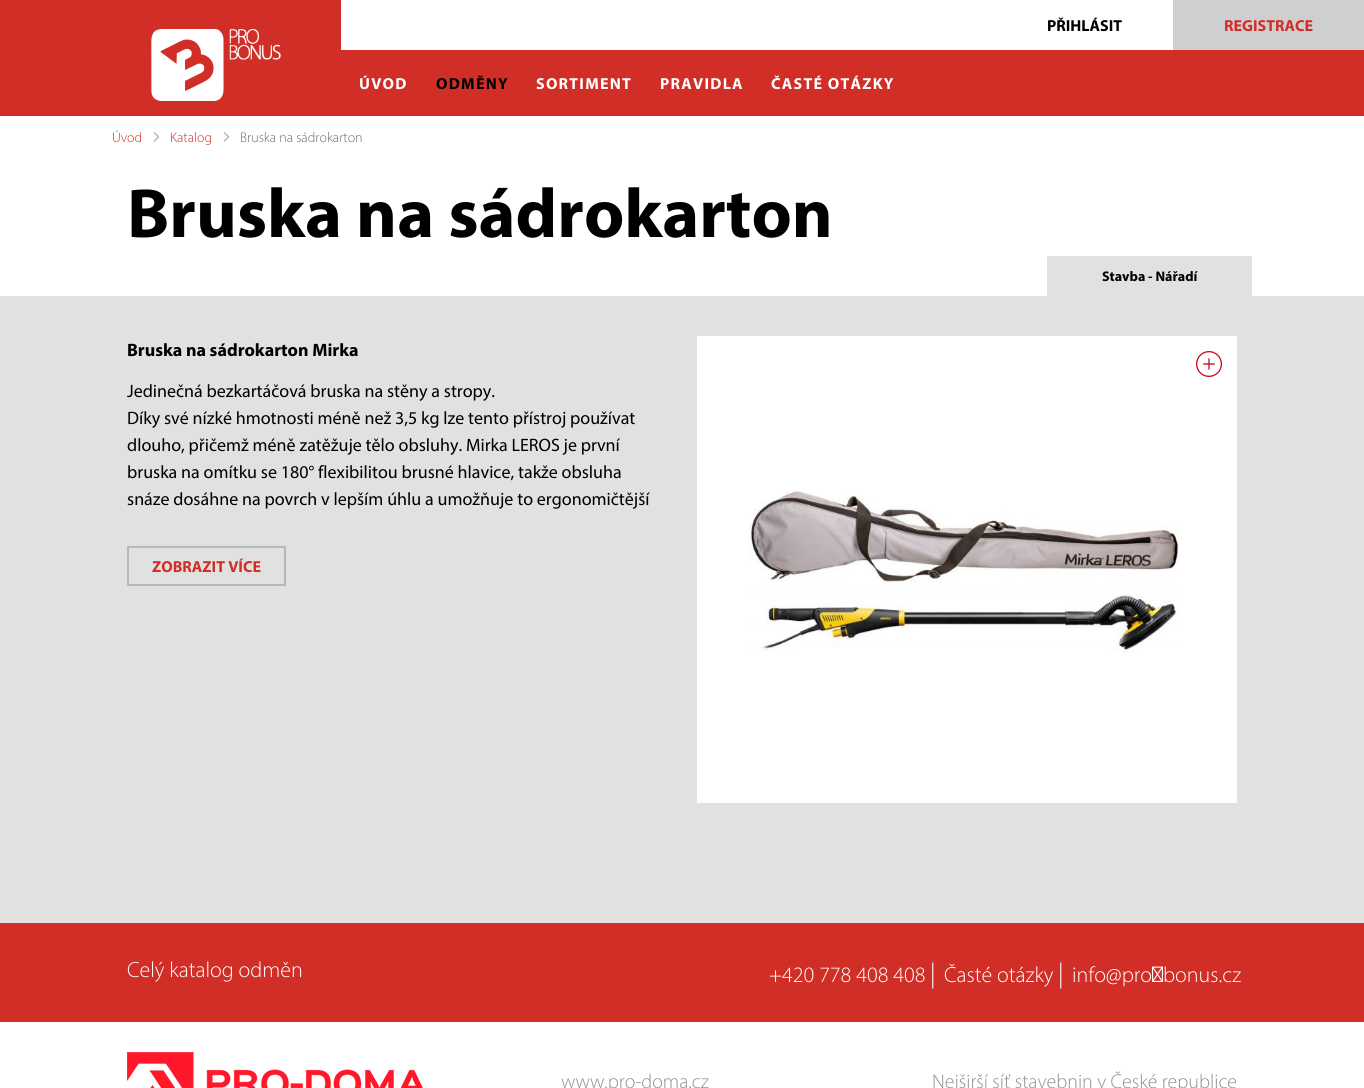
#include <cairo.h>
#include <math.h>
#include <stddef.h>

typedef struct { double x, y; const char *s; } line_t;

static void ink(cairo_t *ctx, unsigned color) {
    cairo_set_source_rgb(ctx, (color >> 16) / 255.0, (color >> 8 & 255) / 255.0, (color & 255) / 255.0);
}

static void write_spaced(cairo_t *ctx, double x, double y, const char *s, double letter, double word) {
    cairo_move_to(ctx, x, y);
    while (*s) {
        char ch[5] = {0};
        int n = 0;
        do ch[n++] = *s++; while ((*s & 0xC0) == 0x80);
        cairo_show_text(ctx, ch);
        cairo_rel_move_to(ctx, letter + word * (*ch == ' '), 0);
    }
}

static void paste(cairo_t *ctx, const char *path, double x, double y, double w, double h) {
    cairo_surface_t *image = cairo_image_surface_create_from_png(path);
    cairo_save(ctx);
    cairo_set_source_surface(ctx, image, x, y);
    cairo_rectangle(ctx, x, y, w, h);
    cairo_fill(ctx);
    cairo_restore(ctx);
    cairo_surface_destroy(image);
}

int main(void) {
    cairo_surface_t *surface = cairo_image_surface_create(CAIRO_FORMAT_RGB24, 1364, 1088);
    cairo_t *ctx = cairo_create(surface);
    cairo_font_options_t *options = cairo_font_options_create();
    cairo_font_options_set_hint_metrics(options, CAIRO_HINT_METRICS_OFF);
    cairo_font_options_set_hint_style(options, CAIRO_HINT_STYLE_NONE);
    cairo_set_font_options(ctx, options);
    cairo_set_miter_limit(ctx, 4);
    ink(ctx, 0xFFFFFF);
    cairo_paint(ctx);
    ink(ctx, 0xD02E26);
    cairo_rectangle(ctx, 0, 0, 1364, 116);
    cairo_fill(ctx);
    ink(ctx, 0xFFFFFF);
    cairo_rectangle(ctx, 341, 0, 832, 50);
    cairo_fill(ctx);
    cairo_select_font_face(ctx, "Myriad", CAIRO_FONT_SLANT_NORMAL, CAIRO_FONT_WEIGHT_BOLD);
    cairo_set_font_size(ctx, 16);
    ink(ctx, 0x000000);
    cairo_move_to(ctx, 1047, 31);
    cairo_show_text(ctx, "PŘIHLÁSIT");
    ink(ctx, 0xCFCFD1);
    cairo_rectangle(ctx, 1173, 0, 191, 50);
    cairo_fill(ctx);
    ink(ctx, 0xD02E26);
    cairo_move_to(ctx, 1224, 31);
    cairo_show_text(ctx, "REGISTRACE");
    paste(ctx, "media/1.png", 151, 29, 130, 72);
    ink(ctx, 0xFFFFFF);
    write_spaced(ctx, 359, 89, "ÚVOD", 1.25, 0);
    ink(ctx, 0x000000);
    write_spaced(ctx, 436, 89, "ODMĚNY", 1.25, 0);
    ink(ctx, 0xFFFFFF);
    {
        static const line_t items[] = {
            {536, 89, "SORTIMENT"},
            {660, 89, "PRAVIDLA"},
            {771, 89, "ČASTÉ OTÁZKY"},
        };
        for (size_t i = 0; i < sizeof items / sizeof *items; i++) {
            write_spaced(ctx, items[i].x, items[i].y, items[i].s, 1.25, 0);
        }
    }
    cairo_select_font_face(ctx, "Myriad Light", CAIRO_FONT_SLANT_NORMAL, CAIRO_FONT_WEIGHT_NORMAL);
    cairo_set_font_size(ctx, 14);
    ink(ctx, 0xD02E26);
    cairo_move_to(ctx, 112, 142);
    cairo_show_text(ctx, "Úvod");
    paste(ctx, "media/2.png", 153, 132, 7, 10);
    cairo_move_to(ctx, 170, 142);
    cairo_show_text(ctx, "Katalog");
    paste(ctx, "media/2.png", 223, 132, 7, 10);
    ink(ctx, 0x636C72);
    cairo_move_to(ctx, 240, 142);
    cairo_show_text(ctx, "Bruska na sádrokarton");
    cairo_select_font_face(ctx, "Myriad", CAIRO_FONT_SLANT_NORMAL, CAIRO_FONT_WEIGHT_BOLD);
    cairo_set_font_size(ctx, 70);
    ink(ctx, 0x000000);
    cairo_move_to(ctx, 127, 237);
    cairo_show_text(ctx, "Bruska na sádrokarton");
    ink(ctx, 0xE1E1E1);
    cairo_rectangle(ctx, 1047, 256, 205, 40);
    cairo_fill(ctx);
    cairo_set_font_size(ctx, 14);
    ink(ctx, 0x000000);
    cairo_move_to(ctx, 1102, 281);
    cairo_show_text(ctx, "Stavba - Nářadí");
    ink(ctx, 0xE1E1E1);
    cairo_rectangle(ctx, 0, 296, 1364, 627);
    cairo_fill(ctx);
    cairo_set_font_size(ctx, 18);
    ink(ctx, 0x000000);
    cairo_move_to(ctx, 127, 356);
    cairo_show_text(ctx, "Bruska na sádrokarton Mirka");
    cairo_select_font_face(ctx, "Myriad", CAIRO_FONT_SLANT_NORMAL, CAIRO_FONT_WEIGHT_NORMAL);
    {
        static const line_t items[] = {
            {127, 397, "Jedinečná bezkartáčová bruska na stěny a stropy."},
            {127, 424, "Díky své nízké hmotnosti méně než 3,5 kg lze tento přístroj používat"},
            {127, 451, "dlouho, přičemž méně zatěžuje tělo obsluhy. Mirka LEROS je první"},
            {127, 478, "bruska na omítku se 180° flexibilitou brusné hlavice, takže obsluha"},
            {127, 505, "snáze dosáhne na povrch v lepším úhlu a umožňuje to ergonomičtější"},
        };
        for (size_t i = 0; i < sizeof items / sizeof *items; i++) {
            cairo_move_to(ctx, items[i].x, items[i].y);
            cairo_show_text(ctx, items[i].s);
        }
    }
    cairo_rectangle(ctx, 128, 547, 157, 38);
    ink(ctx, 0xB4B9B9);
    cairo_stroke(ctx);
    cairo_select_font_face(ctx, "Myriad", CAIRO_FONT_SLANT_NORMAL, CAIRO_FONT_WEIGHT_BOLD);
    cairo_set_font_size(ctx, 16);
    ink(ctx, 0xD02E26);
    cairo_move_to(ctx, 152, 572);
    cairo_show_text(ctx, "ZOBRAZIT VÍCE");
    ink(ctx, 0xFFFFFF);
    cairo_rectangle(ctx, 697, 336, 540, 467);
    cairo_fill(ctx);
    paste(ctx, "media/3.png", 1196, 351, 26, 26);
    paste(ctx, "media/4.png", 749, 489, 431, 163);
    ink(ctx, 0xD02E26);
    cairo_rectangle(ctx, 0, 923, 1364, 99);
    cairo_fill(ctx);
    cairo_select_font_face(ctx, "Myriad Light", CAIRO_FONT_SLANT_NORMAL, CAIRO_FONT_WEIGHT_NORMAL);
    cairo_set_font_size(ctx, 22);
    ink(ctx, 0xFFFFFF);
    cairo_move_to(ctx, 127, 977);
    cairo_show_text(ctx, "Celý katalog odměn");
    cairo_move_to(ctx, 769, 982);
    cairo_show_text(ctx, "+420 778 408 408");
    cairo_set_font_size(ctx, 26);
    cairo_move_to(ctx, 930, 982);
    cairo_show_text(ctx, "|");
    cairo_set_font_size(ctx, 22);
    cairo_move_to(ctx, 944, 982);
    cairo_show_text(ctx, "Časté otázky");
    cairo_set_font_size(ctx, 26);
    cairo_move_to(ctx, 1058, 982);
    cairo_show_text(ctx, "|");
    cairo_set_font_size(ctx, 22);
    cairo_move_to(ctx, 1072, 982);
    cairo_show_text(ctx, "info@pro‑bonus.cz");
    paste(ctx, "media/5.png", 127, 1052, 296, 36);
    cairo_set_font_size(ctx, 20);
    ink(ctx, 0x919191);
    cairo_move_to(ctx, 561, 1088);
    cairo_show_text(ctx, "www.pro-doma.cz");
    cairo_move_to(ctx, 932, 1088);
    cairo_show_text(ctx, "Nejširší síť stavebnin v České republice");
    cairo_surface_write_to_png(surface, "image.png");
    cairo_font_options_destroy(options);
    cairo_destroy(ctx);
    cairo_surface_destroy(surface);
    return 0;
}
